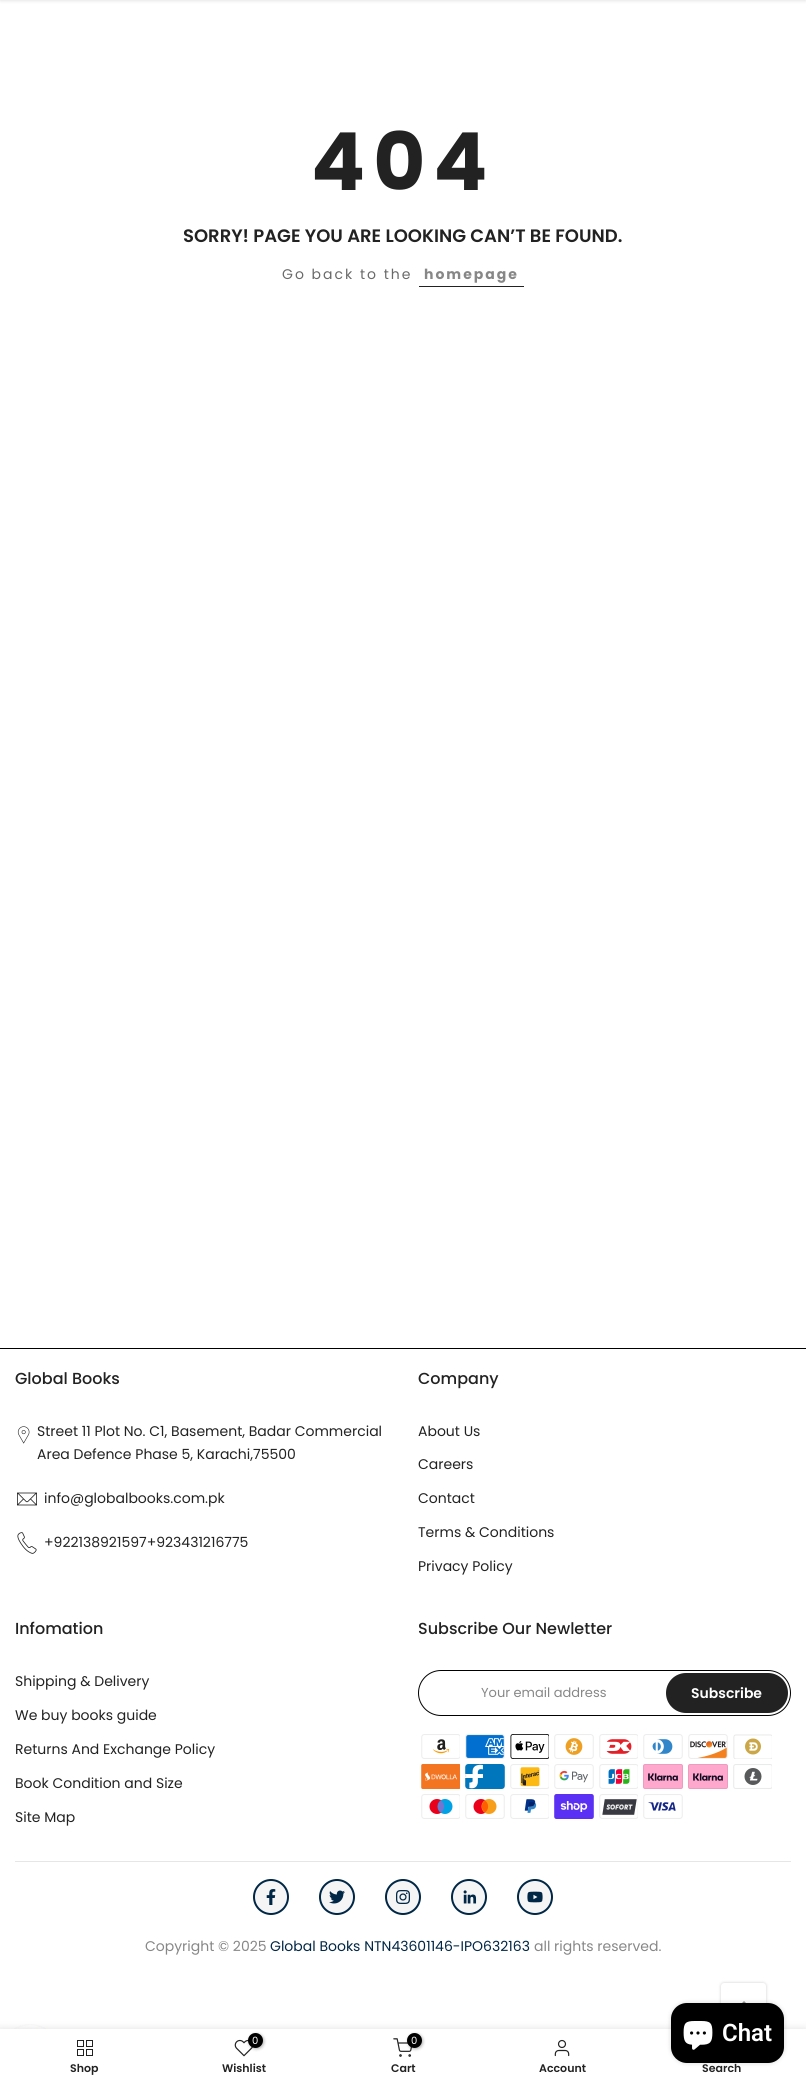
#include <cairo.h>
#include <math.h>
#include <stddef.h>

typedef struct { double x, y; const char *s; } line_t;

static void ink(cairo_t *ctx, unsigned color) {
    cairo_set_source_rgb(ctx, (color >> 16) / 255.0, (color >> 8 & 255) / 255.0, (color & 255) / 255.0);
}

static void write_spaced(cairo_t *ctx, double x, double y, const char *s, double letter, double word) {
    cairo_move_to(ctx, x, y);
    while (*s) {
        char ch[5] = {0};
        int n = 0;
        do ch[n++] = *s++; while ((*s & 0xC0) == 0x80);
        cairo_show_text(ctx, ch);
        cairo_rel_move_to(ctx, letter + word * (*ch == ' '), 0);
    }
}

static void round_path(cairo_t *ctx, double x, double y, double w, double h, double r) {
    cairo_new_sub_path(ctx);
    cairo_arc(ctx, x + w - r, y + h - r, r, 0, M_PI / 2);
    cairo_arc(ctx, x + r, y + h - r, r, M_PI / 2, M_PI);
    cairo_arc(ctx, x + r, y + r, r, M_PI, 1.5 * M_PI);
    cairo_arc(ctx, x + w - r, y + r, r, 1.5 * M_PI, 2 * M_PI);
    cairo_close_path(ctx);
}

static void blur_box(cairo_t *ctx, double x, double y, double w, double h, double r, double blur, double alpha) {
    cairo_push_group_with_content(ctx, CAIRO_CONTENT_ALPHA);
    cairo_set_operator(ctx, CAIRO_OPERATOR_SOURCE);
    for (int i = 15; i >= -15 && fmin(w, h) + blur * i / 3 > 0; i -= 2) {
        double e = blur * i / 6;
        cairo_set_source_rgba(ctx, 0, 0, 0, alpha * erfc((i - 1) / 8.5) / 2);
        round_path(ctx, x - e, y - e, w + 2 * e, h + 2 * e, fmax(0, fmin(r + e + blur * .6, fmin(w, h) / 2 + e)));
        cairo_fill(ctx);
    }
    cairo_pattern_t *soft = cairo_pop_group(ctx);
    cairo_mask(ctx, soft);
    cairo_pattern_destroy(soft);
}

static void paste(cairo_t *ctx, const char *path, double x, double y, double w, double h) {
    cairo_surface_t *image = cairo_image_surface_create_from_png(path);
    cairo_save(ctx);
    cairo_set_source_surface(ctx, image, x, y);
    cairo_rectangle(ctx, x, y, w, h);
    cairo_fill(ctx);
    cairo_restore(ctx);
    cairo_surface_destroy(image);
}

int main(void) {
    cairo_surface_t *surface = cairo_image_surface_create(CAIRO_FORMAT_RGB24, 806, 2084);
    cairo_t *ctx = cairo_create(surface);
    cairo_font_options_t *options = cairo_font_options_create();
    cairo_font_options_set_hint_metrics(options, CAIRO_HINT_METRICS_OFF);
    cairo_font_options_set_hint_style(options, CAIRO_HINT_STYLE_NONE);
    cairo_set_font_options(ctx, options);
    cairo_set_miter_limit(ctx, 4);
    ink(ctx, 0xFFFFFF);
    cairo_paint(ctx);
    ink(ctx, 0x000000);
    blur_box(ctx, 0, -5, 806, 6, 0, 1.5, 0.1);
    cairo_select_font_face(ctx, "Poppins", CAIRO_FONT_SLANT_NORMAL, CAIRO_FONT_WEIGHT_BOLD);
    cairo_set_font_size(ctx, 80);
    ink(ctx, 0x222222);
    write_spaced(ctx, 311, 190, "404", 8, 0);
    cairo_select_font_face(ctx, "Poppins SemiBold", CAIRO_FONT_SLANT_NORMAL, CAIRO_FONT_WEIGHT_NORMAL);
    cairo_set_font_size(ctx, 18);
    cairo_move_to(ctx, 183, 242);
    cairo_show_text(ctx, "SORRY! PAGE YOU ARE LOOKING CAN’T BE FOUND.");
    cairo_select_font_face(ctx, "Poppins", CAIRO_FONT_SLANT_NORMAL, CAIRO_FONT_WEIGHT_NORMAL);
    cairo_set_font_size(ctx, 14);
    ink(ctx, 0x696969);
    write_spaced(ctx, 282, 279, "Go back to the", 2, 0);
    cairo_select_font_face(ctx, "Poppins", CAIRO_FONT_SLANT_NORMAL, CAIRO_FONT_WEIGHT_BOLD);
    ink(ctx, 0x878787);
    write_spaced(ctx, 424, 279, "homepage", 2, 0);
    ink(ctx, 0x222222);
    cairo_rectangle(ctx, 419, 286, 105, 1);
    cairo_fill(ctx);
    ink(ctx, 0x000000);
    cairo_rectangle(ctx, 0, 1348, 806, 1);
    cairo_fill(ctx);
    cairo_select_font_face(ctx, "Poppins Medium", CAIRO_FONT_SLANT_NORMAL, CAIRO_FONT_WEIGHT_NORMAL);
    cairo_set_font_size(ctx, 16);
    ink(ctx, 0x222222);
    cairo_move_to(ctx, 15, 1384);
    cairo_show_text(ctx, "Global Books");
    paste(ctx, "media/1.png", 17, 1426, 13, 18);
    cairo_select_font_face(ctx, "Poppins", CAIRO_FONT_SLANT_NORMAL, CAIRO_FONT_WEIGHT_NORMAL);
    cairo_set_font_size(ctx, 14);
    cairo_move_to(ctx, 37, 1436);
    cairo_show_text(ctx, "Street 11 Plot No. C1, Basement, Badar Commercial");
    cairo_move_to(ctx, 37, 1459);
    cairo_show_text(ctx, "Area Defence Phase 5, Karachi,75500");
    paste(ctx, "media/2.png", 17, 1492, 20, 14);
    cairo_move_to(ctx, 44, 1503);
    cairo_show_text(ctx, "info@globalbooks.com.pk");
    paste(ctx, "media/3.png", 17, 1532, 20, 22);
    cairo_move_to(ctx, 44, 1547);
    cairo_show_text(ctx, "+922138921597+923431216775");
    cairo_select_font_face(ctx, "Poppins Medium", CAIRO_FONT_SLANT_NORMAL, CAIRO_FONT_WEIGHT_NORMAL);
    cairo_set_font_size(ctx, 16);
    cairo_move_to(ctx, 418, 1384);
    cairo_show_text(ctx, "Company");
    cairo_select_font_face(ctx, "Poppins", CAIRO_FONT_SLANT_NORMAL, CAIRO_FONT_WEIGHT_NORMAL);
    cairo_set_font_size(ctx, 14);
    {
        static const line_t items[] = {
            {418, 1436, "About Us"},
            {418, 1469, "Careers"},
            {418, 1503, "Contact"},
            {418, 1537, "Terms & Conditions"},
            {418, 1571, "Privacy Policy"},
        };
        for (size_t i = 0; i < sizeof items / sizeof *items; i++) {
            cairo_move_to(ctx, items[i].x, items[i].y);
            cairo_show_text(ctx, items[i].s);
        }
    }
    cairo_select_font_face(ctx, "Poppins Medium", CAIRO_FONT_SLANT_NORMAL, CAIRO_FONT_WEIGHT_NORMAL);
    cairo_set_font_size(ctx, 16);
    cairo_move_to(ctx, 15, 1634);
    cairo_show_text(ctx, "Infomation");
    cairo_select_font_face(ctx, "Poppins", CAIRO_FONT_SLANT_NORMAL, CAIRO_FONT_WEIGHT_NORMAL);
    cairo_set_font_size(ctx, 14);
    {
        static const line_t items[] = {
            {15, 1686, "Shipping & Delivery"},
            {15, 1720, "We buy books guide"},
            {15, 1754, "Returns And Exchange Policy"},
            {15, 1788, "Book Condition and Size"},
            {15, 1822, "Site Map"},
        };
        for (size_t i = 0; i < sizeof items / sizeof *items; i++) {
            cairo_move_to(ctx, items[i].x, items[i].y);
            cairo_show_text(ctx, items[i].s);
        }
    }
    cairo_select_font_face(ctx, "Poppins Medium", CAIRO_FONT_SLANT_NORMAL, CAIRO_FONT_WEIGHT_NORMAL);
    cairo_set_font_size(ctx, 16);
    cairo_move_to(ctx, 418, 1634);
    cairo_show_text(ctx, "Subscribe Our Newletter");
    round_path(ctx, 418.5, 1670.5, 372, 45, 22.5);
    ink(ctx, 0x000000);
    cairo_set_line_width(ctx, 1);
    cairo_stroke(ctx);
    cairo_select_font_face(ctx, "Poppins", CAIRO_FONT_SLANT_NORMAL, CAIRO_FONT_WEIGHT_NORMAL);
    cairo_set_font_size(ctx, 13);
    ink(ctx, 0x878787);
    cairo_move_to(ctx, 481, 1697);
    cairo_show_text(ctx, "Your email address");
    ink(ctx, 0x222222);
    round_path(ctx, 666, 1673, 122, 40, 20);
    cairo_fill(ctx);
    cairo_select_font_face(ctx, "Poppins SemiBold", CAIRO_FONT_SLANT_NORMAL, CAIRO_FONT_WEIGHT_NORMAL);
    cairo_set_font_size(ctx, 14);
    ink(ctx, 0xFFFFFF);
    cairo_move_to(ctx, 691, 1698);
    cairo_show_text(ctx, "Subscribe");
    paste(ctx, "media/4.png", 421, 1734, 39, 25);
    paste(ctx, "media/5.png", 465, 1734, 40, 25);
    paste(ctx, "media/6.png", 510, 1734, 39, 25);
    paste(ctx, "media/7.png", 554, 1734, 40, 25);
    paste(ctx, "media/8.png", 599, 1734, 39, 25);
    paste(ctx, "media/9.png", 643, 1734, 40, 25);
    paste(ctx, "media/10.png", 688, 1734, 40, 25);
    paste(ctx, "media/11.png", 733, 1734, 39, 25);
    paste(ctx, "media/12.png", 421, 1764, 39, 25);
    paste(ctx, "media/13.png", 465, 1764, 40, 25);
    paste(ctx, "media/14.png", 510, 1764, 39, 25);
    paste(ctx, "media/15.png", 554, 1764, 40, 25);
    paste(ctx, "media/16.png", 599, 1764, 39, 25);
    paste(ctx, "media/17.png", 643, 1764, 40, 25);
    paste(ctx, "media/17.png", 688, 1764, 40, 25);
    paste(ctx, "media/18.png", 733, 1764, 39, 25);
    paste(ctx, "media/19.png", 421, 1794, 39, 25);
    paste(ctx, "media/20.png", 465, 1794, 40, 25);
    paste(ctx, "media/21.png", 510, 1794, 39, 25);
    paste(ctx, "media/22.png", 554, 1794, 40, 25);
    paste(ctx, "media/23.png", 599, 1794, 39, 25);
    paste(ctx, "media/24.png", 643, 1794, 40, 25);
    ink(ctx, 0xE6E6E6);
    cairo_rectangle(ctx, 15, 1861, 776, 1);
    cairo_fill(ctx);
    ink(ctx, 0xF5F5F5);
    cairo_arc(ctx, 271, 1897, 17, 0, 2 * M_PI);
    cairo_fill_preserve(ctx);
    ink(ctx, 0x002745);
    cairo_set_line_width(ctx, 2);
    cairo_stroke(ctx);
    paste(ctx, "media/25.png", 266, 1889, 10, 16);
    ink(ctx, 0xF5F5F5);
    cairo_arc(ctx, 337, 1897, 17, 0, 2 * M_PI);
    cairo_fill_preserve(ctx);
    ink(ctx, 0x002745);
    cairo_stroke(ctx);
    paste(ctx, "media/26.png", 329, 1890, 16, 14);
    ink(ctx, 0xF5F5F5);
    cairo_arc(ctx, 403, 1897, 17, 0, 2 * M_PI);
    cairo_fill_preserve(ctx);
    ink(ctx, 0x002745);
    cairo_stroke(ctx);
    paste(ctx, "media/27.png", 396, 1890, 14, 14);
    ink(ctx, 0xF5F5F5);
    cairo_arc(ctx, 469, 1897, 17, 0, 2 * M_PI);
    cairo_fill_preserve(ctx);
    ink(ctx, 0x002745);
    cairo_stroke(ctx);
    paste(ctx, "media/28.png", 463, 1890, 14, 14);
    ink(ctx, 0xF5F5F5);
    cairo_arc(ctx, 535, 1897, 17, 0, 2 * M_PI);
    cairo_fill_preserve(ctx);
    ink(ctx, 0x002745);
    cairo_stroke(ctx);
    paste(ctx, "media/29.png", 527, 1891, 16, 12);
    cairo_select_font_face(ctx, "Poppins", CAIRO_FONT_SLANT_NORMAL, CAIRO_FONT_WEIGHT_NORMAL);
    ink(ctx, 0x878787);
    cairo_move_to(ctx, 145, 1951);
    cairo_show_text(ctx, "Copyright © 2025");
    ink(ctx, 0x002745);
    cairo_move_to(ctx, 270, 1951);
    cairo_show_text(ctx, "Global Books NTN43601146-IPO632163");
    ink(ctx, 0x878787);
    cairo_move_to(ctx, 534, 1951);
    cairo_show_text(ctx, "all rights reserved.");
    ink(ctx, 0x000000);
    blur_box(ctx, 721, 1983, 45, 45, 3, 1.5, 0.2);
    ink(ctx, 0xFFFFFF);
    round_path(ctx, 721, 1983, 45, 45, 3);
    cairo_fill(ctx);
    paste(ctx, "media/30.png", 742, 2001, 4, 2);
    paste(ctx, "media/31.png", 14, 2024, 32, 5);
    ink(ctx, 0x000000);
    blur_box(ctx, 0, 2029, 806, 55, 0, 4.5, 0.12);
    ink(ctx, 0xFFFFFF);
    cairo_rectangle(ctx, 0, 2029, 806, 55);
    cairo_fill(ctx);
    ink(ctx, 0x000000);
    blur_box(ctx, 671, 2003, 113, 60, 16, 2.5, 0.15);
    ink(ctx, 0x000000);
    round_path(ctx, 671, 2003, 113, 60, 16);
    cairo_fill(ctx);
    paste(ctx, "media/32.png", 683, 2021, 30, 29);
    cairo_select_font_face(ctx, "Roboto SemiBold", CAIRO_FONT_SLANT_NORMAL, CAIRO_FONT_WEIGHT_NORMAL);
    cairo_set_font_size(ctx, 24);
    ink(ctx, 0xFFFFFF);
    cairo_move_to(ctx, 722, 2041);
    cairo_show_text(ctx, "Chat");
    paste(ctx, "media/33.png", 77, 2040, 16, 16);
    cairo_select_font_face(ctx, "Poppins SemiBold", CAIRO_FONT_SLANT_NORMAL, CAIRO_FONT_WEIGHT_NORMAL);
    cairo_set_font_size(ctx, 11);
    ink(ctx, 0x222222);
    cairo_move_to(ctx, 70, 2072);
    cairo_show_text(ctx, "Shop");
    paste(ctx, "media/34.png", 234, 2039, 19, 18);
    ink(ctx, 0x000000);
    blur_box(ctx, 249, 2034, 15, 15, 7.5, 1.5, 0.3);
    ink(ctx, 0x000000);
    cairo_arc(ctx, 255.5, 2040.5, 7.5, 0, 2 * M_PI);
    cairo_fill(ctx);
    cairo_select_font_face(ctx, "Poppins", CAIRO_FONT_SLANT_NORMAL, CAIRO_FONT_WEIGHT_NORMAL);
    cairo_set_font_size(ctx, 10);
    ink(ctx, 0xFFFFFF);
    cairo_move_to(ctx, 252, 2044);
    cairo_show_text(ctx, "0");
    cairo_select_font_face(ctx, "Poppins SemiBold", CAIRO_FONT_SLANT_NORMAL, CAIRO_FONT_WEIGHT_NORMAL);
    cairo_set_font_size(ctx, 11);
    ink(ctx, 0x222222);
    cairo_move_to(ctx, 222, 2072);
    cairo_show_text(ctx, "Wishlist");
    paste(ctx, "media/35.png", 393, 2038, 19, 19);
    ink(ctx, 0x000000);
    blur_box(ctx, 408, 2034, 15, 15, 7.5, 1.5, 0.3);
    ink(ctx, 0x000000);
    cairo_arc(ctx, 414.5, 2040.5, 7.5, 0, 2 * M_PI);
    cairo_fill(ctx);
    cairo_select_font_face(ctx, "Poppins", CAIRO_FONT_SLANT_NORMAL, CAIRO_FONT_WEIGHT_NORMAL);
    cairo_set_font_size(ctx, 10);
    ink(ctx, 0xFFFFFF);
    cairo_move_to(ctx, 411, 2044);
    cairo_show_text(ctx, "0");
    cairo_select_font_face(ctx, "Poppins SemiBold", CAIRO_FONT_SLANT_NORMAL, CAIRO_FONT_WEIGHT_NORMAL);
    cairo_set_font_size(ctx, 11);
    ink(ctx, 0x222222);
    cairo_move_to(ctx, 391, 2072);
    cairo_show_text(ctx, "Cart");
    paste(ctx, "media/36.png", 554, 2039, 16, 18);
    cairo_move_to(ctx, 539, 2072);
    cairo_show_text(ctx, "Account");
    cairo_move_to(ctx, 702, 2072);
    cairo_show_text(ctx, "Search");
    cairo_surface_write_to_png(surface, "image.png");
    cairo_font_options_destroy(options);
    cairo_destroy(ctx);
    cairo_surface_destroy(surface);
    return 0;
}
